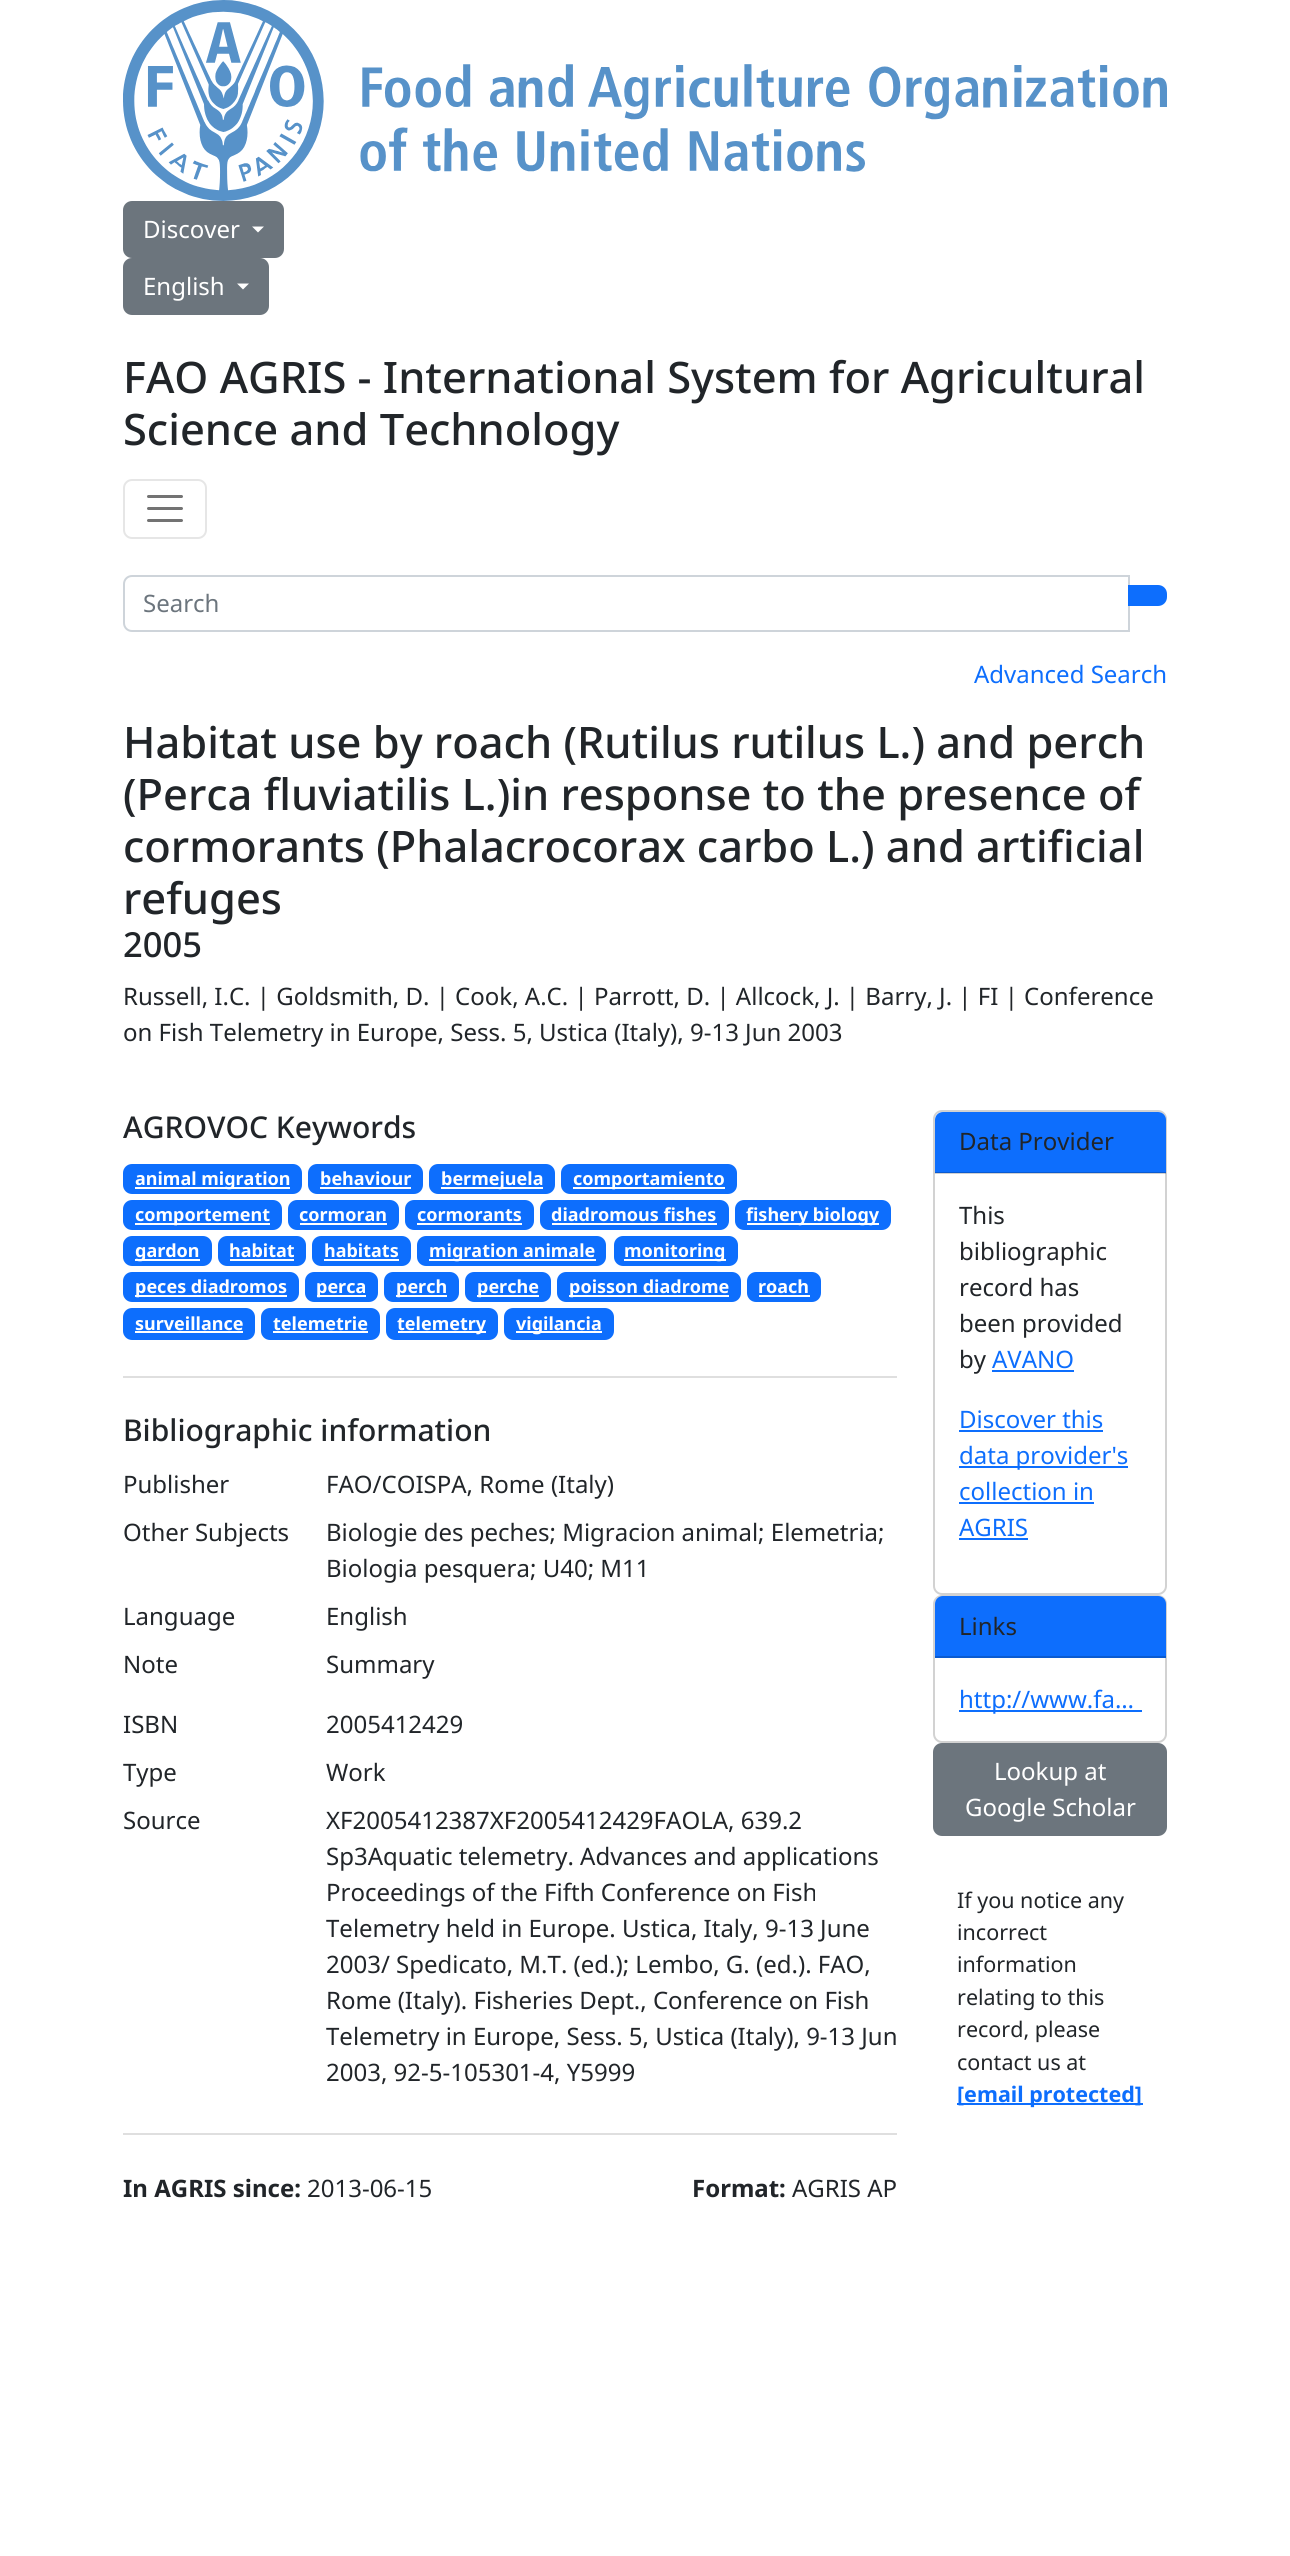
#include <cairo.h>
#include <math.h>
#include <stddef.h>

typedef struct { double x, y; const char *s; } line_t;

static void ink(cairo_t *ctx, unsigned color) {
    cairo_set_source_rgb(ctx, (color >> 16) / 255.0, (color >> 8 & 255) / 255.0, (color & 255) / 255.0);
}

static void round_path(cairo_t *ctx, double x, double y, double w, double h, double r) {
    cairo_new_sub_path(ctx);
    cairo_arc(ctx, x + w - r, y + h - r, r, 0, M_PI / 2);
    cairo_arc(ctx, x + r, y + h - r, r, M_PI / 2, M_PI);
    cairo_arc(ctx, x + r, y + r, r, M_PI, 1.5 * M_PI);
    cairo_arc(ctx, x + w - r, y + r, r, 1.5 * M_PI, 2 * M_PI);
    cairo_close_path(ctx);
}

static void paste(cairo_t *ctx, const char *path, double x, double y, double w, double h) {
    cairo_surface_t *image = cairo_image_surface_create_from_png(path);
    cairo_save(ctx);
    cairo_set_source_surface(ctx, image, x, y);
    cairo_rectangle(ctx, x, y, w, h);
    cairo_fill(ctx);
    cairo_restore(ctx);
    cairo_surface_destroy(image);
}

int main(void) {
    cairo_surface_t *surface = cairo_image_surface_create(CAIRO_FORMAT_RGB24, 1290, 2556);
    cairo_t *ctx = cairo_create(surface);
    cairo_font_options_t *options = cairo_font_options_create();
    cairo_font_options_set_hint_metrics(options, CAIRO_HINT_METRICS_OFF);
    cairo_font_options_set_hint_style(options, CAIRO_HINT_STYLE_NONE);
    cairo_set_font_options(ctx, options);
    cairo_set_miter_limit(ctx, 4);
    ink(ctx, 0xFFFFFF);
    cairo_paint(ctx);
    paste(ctx, "media/1.png", 123, 0, 1044, 201);
    ink(ctx, 0x6C757D);
    round_path(ctx, 124, 202, 159, 55, 8);
    cairo_fill_preserve(ctx);
    cairo_stroke(ctx);
    cairo_select_font_face(ctx, "Noto Sans", CAIRO_FONT_SLANT_NORMAL, CAIRO_FONT_WEIGHT_NORMAL);
    cairo_set_font_size(ctx, 24);
    ink(ctx, 0xFFFFFF);
    cairo_move_to(ctx, 143, 238);
    cairo_show_text(ctx, "Discover");
    cairo_new_path(ctx);
    cairo_move_to(ctx, 252, 226.5);
    cairo_line_to(ctx, 264, 226.5);
    cairo_line_to(ctx, 258, 232.5);
    cairo_close_path(ctx);
    cairo_fill(ctx);
    ink(ctx, 0x6C757D);
    round_path(ctx, 124, 259, 144, 55, 8);
    cairo_fill_preserve(ctx);
    cairo_stroke(ctx);
    ink(ctx, 0xFFFFFF);
    cairo_move_to(ctx, 143, 295);
    cairo_show_text(ctx, "English");
    cairo_new_path(ctx);
    cairo_move_to(ctx, 237, 283.5);
    cairo_line_to(ctx, 249, 283.5);
    cairo_line_to(ctx, 243, 289.5);
    cairo_close_path(ctx);
    cairo_fill(ctx);
    cairo_select_font_face(ctx, "Noto Sans Medium", CAIRO_FONT_SLANT_NORMAL, CAIRO_FONT_WEIGHT_NORMAL);
    cairo_set_font_size(ctx, 43.4);
    ink(ctx, 0x212529);
    cairo_move_to(ctx, 123, 393);
    cairo_show_text(ctx, "FAO AGRIS - International System for Agricultural");
    cairo_move_to(ctx, 123, 445);
    cairo_show_text(ctx, "Science and Technology");
    round_path(ctx, 124, 480, 82, 58, 8);
    ink(ctx, 0xE6E6E6);
    cairo_stroke(ctx);
    cairo_new_path(ctx);
    cairo_move_to(ctx, 148.5, 496.5);
    cairo_line_to(ctx, 181.5, 496.5);
    cairo_move_to(ctx, 148.5, 508.5);
    cairo_line_to(ctx, 181.5, 508.5);
    cairo_move_to(ctx, 148.5, 520.5);
    cairo_line_to(ctx, 181.5, 520.5);
    ink(ctx, 0x737373);
    cairo_set_line_width(ctx, 3);
    cairo_set_line_cap(ctx, CAIRO_LINE_CAP_ROUND);
    cairo_stroke(ctx);
    cairo_new_path(ctx);
    cairo_move_to(ctx, 132, 576);
    cairo_line_to(ctx, 1129, 576);
    cairo_line_to(ctx, 1129, 631);
    cairo_line_to(ctx, 132, 631);
    cairo_curve_to(ctx, 127.5, 631, 124, 627.5, 124, 623);
    cairo_line_to(ctx, 124, 584);
    cairo_curve_to(ctx, 124, 579.5, 127.5, 576, 132, 576);
    cairo_close_path(ctx);
    ink(ctx, 0xCED4DA);
    cairo_set_line_width(ctx, 2);
    cairo_set_line_cap(ctx, CAIRO_LINE_CAP_BUTT);
    cairo_stroke(ctx);
    cairo_select_font_face(ctx, "Noto Sans", CAIRO_FONT_SLANT_NORMAL, CAIRO_FONT_WEIGHT_NORMAL);
    cairo_set_font_size(ctx, 24);
    ink(ctx, 0x6C757D);
    cairo_move_to(ctx, 143, 612);
    cairo_show_text(ctx, "Search");
    ink(ctx, 0x0D6EFD);
    cairo_new_path(ctx);
    cairo_move_to(ctx, 1129, 586);
    cairo_line_to(ctx, 1158, 586);
    cairo_curve_to(ctx, 1162.5, 586, 1166, 589.5, 1166, 594);
    cairo_line_to(ctx, 1166, 597);
    cairo_curve_to(ctx, 1166, 601.5, 1162.5, 605, 1158, 605);
    cairo_line_to(ctx, 1129, 605);
    cairo_close_path(ctx);
    cairo_fill_preserve(ctx);
    cairo_stroke(ctx);
    cairo_move_to(ctx, 974, 683);
    cairo_show_text(ctx, "Advanced Search");
    cairo_select_font_face(ctx, "Noto Sans Medium", CAIRO_FONT_SLANT_NORMAL, CAIRO_FONT_WEIGHT_NORMAL);
    cairo_set_font_size(ctx, 43.4);
    ink(ctx, 0x212529);
    {
        static const line_t items[] = {
            {123, 758, "Habitat use by roach (Rutilus rutilus L.) and perch"},
            {123, 810, "(Perca fluviatilis L.)in response to the presence of"},
            {123, 862, "cormorants (Phalacrocorax carbo L.) and artificial"},
            {123, 914, "refuges"},
        };
        for (size_t i = 0; i < sizeof items / sizeof *items; i++) {
            cairo_move_to(ctx, items[i].x, items[i].y);
            cairo_show_text(ctx, items[i].s);
        }
    }
    cairo_set_font_size(ctx, 34.5);
    cairo_move_to(ctx, 123, 957);
    cairo_show_text(ctx, "2005");
    cairo_select_font_face(ctx, "Noto Sans", CAIRO_FONT_SLANT_NORMAL, CAIRO_FONT_WEIGHT_NORMAL);
    cairo_set_font_size(ctx, 24);
    cairo_move_to(ctx, 123, 1005);
    cairo_show_text(ctx, "Russell, I.C. | Goldsmith, D. | Cook, A.C. | Parrott, D. | Allcock, J. | Barry, J. | FI | Conference");
    cairo_move_to(ctx, 123, 1041);
    cairo_show_text(ctx, "on Fish Telemetry in Europe, Sess. 5, Ustica (Italy), 9-13 Jun 2003");
    cairo_select_font_face(ctx, "Noto Sans Medium", CAIRO_FONT_SLANT_NORMAL, CAIRO_FONT_WEIGHT_NORMAL);
    cairo_set_font_size(ctx, 30);
    cairo_move_to(ctx, 123, 1138);
    cairo_show_text(ctx, "AGROVOC Keywords");
    ink(ctx, 0x0D6EFD);
    round_path(ctx, 123, 1164, 179, 30, 9);
    cairo_fill(ctx);
    ink(ctx, 0xFFFFFF);
    cairo_rectangle(ctx, 135, 1187, 155, 2);
    cairo_fill(ctx);
    cairo_select_font_face(ctx, "Noto Sans", CAIRO_FONT_SLANT_NORMAL, CAIRO_FONT_WEIGHT_BOLD);
    cairo_set_font_size(ctx, 18);
    cairo_move_to(ctx, 135, 1185);
    cairo_show_text(ctx, "animal migration");
    ink(ctx, 0x0D6EFD);
    round_path(ctx, 308, 1164, 115, 30, 9);
    cairo_fill(ctx);
    ink(ctx, 0xFFFFFF);
    cairo_move_to(ctx, 320, 1185);
    cairo_show_text(ctx, "behaviour");
    cairo_rectangle(ctx, 320, 1187, 91, 2);
    cairo_fill(ctx);
    ink(ctx, 0x0D6EFD);
    round_path(ctx, 429, 1164, 126, 30, 9);
    cairo_fill(ctx);
    ink(ctx, 0xFFFFFF);
    cairo_rectangle(ctx, 441, 1187, 102, 2);
    cairo_fill(ctx);
    cairo_move_to(ctx, 441, 1185);
    cairo_show_text(ctx, "bermejuela");
    ink(ctx, 0x0D6EFD);
    round_path(ctx, 561, 1164, 176, 30, 9);
    cairo_fill(ctx);
    ink(ctx, 0xFFFFFF);
    cairo_rectangle(ctx, 573, 1187, 152, 2);
    cairo_fill(ctx);
    cairo_move_to(ctx, 573, 1185);
    cairo_show_text(ctx, "comportamiento");
    ink(ctx, 0x0D6EFD);
    round_path(ctx, 123, 1200, 159, 30, 9);
    cairo_fill(ctx);
    ink(ctx, 0xFFFFFF);
    cairo_rectangle(ctx, 135, 1223, 135, 2);
    cairo_fill(ctx);
    cairo_move_to(ctx, 135, 1221);
    cairo_show_text(ctx, "comportement");
    ink(ctx, 0x0D6EFD);
    round_path(ctx, 288, 1200, 111, 30, 9);
    cairo_fill(ctx);
    ink(ctx, 0xFFFFFF);
    cairo_move_to(ctx, 299, 1221);
    cairo_show_text(ctx, "cormoran");
    cairo_rectangle(ctx, 300, 1223, 87, 2);
    cairo_fill(ctx);
    ink(ctx, 0x0D6EFD);
    round_path(ctx, 405, 1200, 129, 30, 9);
    cairo_fill(ctx);
    ink(ctx, 0xFFFFFF);
    cairo_move_to(ctx, 417, 1221);
    cairo_show_text(ctx, "cormorants");
    cairo_rectangle(ctx, 417, 1223, 105, 2);
    cairo_fill(ctx);
    ink(ctx, 0x0D6EFD);
    round_path(ctx, 540, 1200, 189, 30, 9);
    cairo_fill(ctx);
    ink(ctx, 0xFFFFFF);
    cairo_move_to(ctx, 551, 1221);
    cairo_show_text(ctx, "diadromous fishes");
    cairo_rectangle(ctx, 552, 1223, 165, 2);
    cairo_fill(ctx);
    ink(ctx, 0x0D6EFD);
    round_path(ctx, 735, 1200, 156, 30, 9);
    cairo_fill(ctx);
    ink(ctx, 0xFFFFFF);
    cairo_rectangle(ctx, 747, 1223, 132, 2);
    cairo_fill(ctx);
    cairo_move_to(ctx, 746, 1221);
    cairo_show_text(ctx, "fishery biology");
    ink(ctx, 0x0D6EFD);
    round_path(ctx, 123, 1236, 89, 30, 9);
    cairo_fill(ctx);
    ink(ctx, 0xFFFFFF);
    cairo_rectangle(ctx, 135, 1259, 65, 2);
    cairo_fill(ctx);
    cairo_move_to(ctx, 135, 1257);
    cairo_show_text(ctx, "gardon");
    ink(ctx, 0x0D6EFD);
    round_path(ctx, 218, 1236, 88, 30, 9);
    cairo_fill(ctx);
    ink(ctx, 0xFFFFFF);
    cairo_move_to(ctx, 229, 1257);
    cairo_show_text(ctx, "habitat");
    cairo_rectangle(ctx, 230, 1259, 64, 2);
    cairo_fill(ctx);
    ink(ctx, 0x0D6EFD);
    round_path(ctx, 312, 1236, 99, 30, 9);
    cairo_fill(ctx);
    ink(ctx, 0xFFFFFF);
    cairo_move_to(ctx, 324, 1257);
    cairo_show_text(ctx, "habitats");
    cairo_rectangle(ctx, 324, 1259, 75, 2);
    cairo_fill(ctx);
    ink(ctx, 0x0D6EFD);
    round_path(ctx, 417, 1236, 189, 30, 9);
    cairo_fill(ctx);
    ink(ctx, 0xFFFFFF);
    cairo_rectangle(ctx, 429, 1259, 167, 2);
    cairo_fill(ctx);
    cairo_move_to(ctx, 429, 1257);
    cairo_show_text(ctx, "migration animale");
    ink(ctx, 0x0D6EFD);
    round_path(ctx, 614, 1236, 124, 30, 9);
    cairo_fill(ctx);
    ink(ctx, 0xFFFFFF);
    cairo_rectangle(ctx, 624, 1259, 102, 2);
    cairo_fill(ctx);
    cairo_move_to(ctx, 624, 1257);
    cairo_show_text(ctx, "monitoring");
    ink(ctx, 0x0D6EFD);
    round_path(ctx, 123, 1272, 176, 30, 9);
    cairo_fill(ctx);
    ink(ctx, 0xFFFFFF);
    cairo_rectangle(ctx, 135, 1295, 152, 2);
    cairo_fill(ctx);
    cairo_move_to(ctx, 135, 1293);
    cairo_show_text(ctx, "peces diadromos");
    ink(ctx, 0x0D6EFD);
    round_path(ctx, 305, 1272, 73, 30, 9);
    cairo_fill(ctx);
    ink(ctx, 0xFFFFFF);
    cairo_rectangle(ctx, 317, 1295, 49, 2);
    cairo_fill(ctx);
    cairo_move_to(ctx, 316, 1293);
    cairo_show_text(ctx, "perca");
    ink(ctx, 0x0D6EFD);
    round_path(ctx, 384, 1272, 75, 30, 9);
    cairo_fill(ctx);
    ink(ctx, 0xFFFFFF);
    cairo_rectangle(ctx, 396, 1295, 51, 2);
    cairo_fill(ctx);
    cairo_move_to(ctx, 396, 1293);
    cairo_show_text(ctx, "perch");
    ink(ctx, 0x0D6EFD);
    round_path(ctx, 465, 1272, 86, 30, 9);
    cairo_fill(ctx);
    ink(ctx, 0xFFFFFF);
    cairo_rectangle(ctx, 477, 1295, 62, 2);
    cairo_fill(ctx);
    cairo_move_to(ctx, 477, 1293);
    cairo_show_text(ctx, "perche");
    ink(ctx, 0x0D6EFD);
    round_path(ctx, 557, 1272, 184, 30, 9);
    cairo_fill(ctx);
    ink(ctx, 0xFFFFFF);
    cairo_rectangle(ctx, 569, 1295, 160, 2);
    cairo_fill(ctx);
    cairo_move_to(ctx, 569, 1293);
    cairo_show_text(ctx, "poisson diadrome");
    ink(ctx, 0x0D6EFD);
    round_path(ctx, 747, 1272, 74, 30, 9);
    cairo_fill(ctx);
    ink(ctx, 0xFFFFFF);
    cairo_move_to(ctx, 758, 1293);
    cairo_show_text(ctx, "roach");
    cairo_rectangle(ctx, 759, 1295, 51, 2);
    cairo_fill(ctx);
    ink(ctx, 0x0D6EFD);
    round_path(ctx, 123, 1308, 132, 32, 9);
    cairo_fill(ctx);
    ink(ctx, 0xFFFFFF);
    cairo_move_to(ctx, 135, 1330);
    cairo_show_text(ctx, "surveillance");
    cairo_rectangle(ctx, 135, 1331, 108, 2);
    cairo_fill(ctx);
    ink(ctx, 0x0D6EFD);
    round_path(ctx, 261, 1308, 119, 32, 9);
    cairo_fill(ctx);
    ink(ctx, 0xFFFFFF);
    cairo_move_to(ctx, 273, 1330);
    cairo_show_text(ctx, "telemetrie");
    cairo_rectangle(ctx, 273, 1331, 95, 2);
    cairo_fill(ctx);
    ink(ctx, 0x0D6EFD);
    round_path(ctx, 386, 1308, 112, 32, 9);
    cairo_fill(ctx);
    ink(ctx, 0xFFFFFF);
    cairo_rectangle(ctx, 398, 1331, 88, 2);
    cairo_fill(ctx);
    cairo_move_to(ctx, 397, 1330);
    cairo_show_text(ctx, "telemetry");
    ink(ctx, 0x0D6EFD);
    round_path(ctx, 504, 1308, 110, 32, 9);
    cairo_fill(ctx);
    ink(ctx, 0xFFFFFF);
    cairo_rectangle(ctx, 516, 1331, 86, 2);
    cairo_fill(ctx);
    cairo_move_to(ctx, 516, 1330);
    cairo_show_text(ctx, "vigilancia");
    ink(ctx, 0xDFDFDF);
    cairo_rectangle(ctx, 123, 1376, 774, 2);
    cairo_fill(ctx);
    cairo_select_font_face(ctx, "Noto Sans Medium", CAIRO_FONT_SLANT_NORMAL, CAIRO_FONT_WEIGHT_NORMAL);
    cairo_set_font_size(ctx, 30);
    ink(ctx, 0x212529);
    cairo_move_to(ctx, 123, 1441);
    cairo_show_text(ctx, "Bibliographic information");
    cairo_select_font_face(ctx, "Noto Sans", CAIRO_FONT_SLANT_NORMAL, CAIRO_FONT_WEIGHT_NORMAL);
    cairo_set_font_size(ctx, 24);
    {
        static const line_t items[] = {
            {123, 1493, "Publisher"},
            {326, 1493, "FAO/COISPA, Rome (Italy)"},
            {123, 1541, "Other Subjects"},
            {326, 1541, "Biologie des peches; Migracion animal; Elemetria;"},
            {326, 1577, "Biologia pesquera; U40; M11"},
            {123, 1625, "Language"},
            {326, 1625, "English"},
            {123, 1673, "Note"},
            {326, 1673, "Summary"},
            {123, 1733, "ISBN"},
            {326, 1733, "2005412429"},
            {123, 1781, "Type"},
            {326, 1781, "Work"},
            {123, 1829, "Source"},
            {326, 1829, "XF2005412387XF2005412429FAOLA, 639.2"},
            {326, 1865, "Sp3Aquatic telemetry. Advances and applications"},
            {326, 1901, "Proceedings of the Fifth Conference on Fish"},
            {326, 1937, "Telemetry held in Europe. Ustica, Italy, 9-13 June"},
            {326, 1973, "2003/ Spedicato, M.T. (ed.); Lembo, G. (ed.). FAO,"},
            {326, 2009, "Rome (Italy). Fisheries Dept., Conference on Fish"},
            {326, 2045, "Telemetry in Europe, Sess. 5, Ustica (Italy), 9-13 Jun"},
            {326, 2081, "2003, 92-5-105301-4, Y5999"},
        };
        for (size_t i = 0; i < sizeof items / sizeof *items; i++) {
            cairo_move_to(ctx, items[i].x, items[i].y);
            cairo_show_text(ctx, items[i].s);
        }
    }
    ink(ctx, 0xDFDFDF);
    cairo_rectangle(ctx, 123, 2133, 774, 2);
    cairo_fill(ctx);
    cairo_select_font_face(ctx, "Noto Sans", CAIRO_FONT_SLANT_NORMAL, CAIRO_FONT_WEIGHT_BOLD);
    ink(ctx, 0x212529);
    cairo_move_to(ctx, 123, 2197);
    cairo_show_text(ctx, "In AGRIS since:");
    cairo_select_font_face(ctx, "Noto Sans", CAIRO_FONT_SLANT_NORMAL, CAIRO_FONT_WEIGHT_NORMAL);
    cairo_move_to(ctx, 307, 2197);
    cairo_show_text(ctx, "2013-06-15");
    cairo_select_font_face(ctx, "Noto Sans", CAIRO_FONT_SLANT_NORMAL, CAIRO_FONT_WEIGHT_BOLD);
    cairo_move_to(ctx, 692, 2197);
    cairo_show_text(ctx, "Format:");
    cairo_select_font_face(ctx, "Noto Sans", CAIRO_FONT_SLANT_NORMAL, CAIRO_FONT_WEIGHT_NORMAL);
    cairo_move_to(ctx, 792, 2197);
    cairo_show_text(ctx, "AGRIS AP");
    round_path(ctx, 934, 1111, 232, 483, 8);
    ink(ctx, 0xD2D2D2);
    cairo_stroke(ctx);
    ink(ctx, 0x0D6EFD);
    cairo_new_path(ctx);
    cairo_move_to(ctx, 943, 1112);
    cairo_line_to(ctx, 1158, 1112);
    cairo_curve_to(ctx, 1162.5, 1112, 1166, 1115.5, 1166, 1120);
    cairo_line_to(ctx, 1166, 1173);
    cairo_line_to(ctx, 935, 1173);
    cairo_line_to(ctx, 935, 1120);
    cairo_curve_to(ctx, 935, 1115.5, 938.5, 1112, 943, 1112);
    cairo_close_path(ctx);
    cairo_fill(ctx);
    cairo_set_source_rgba(ctx, 0, 0, 0, 0.18);
    cairo_rectangle(ctx, 935, 1172, 231, 2);
    cairo_fill(ctx);
    ink(ctx, 0x212529);
    {
        static const line_t items[] = {
            {959, 1150, "Data Provider"},
            {959, 1224, "This"},
            {959, 1260, "bibliographic"},
            {959, 1296, "record has"},
            {959, 1332, "been provided"},
            {959, 1368, "by"},
        };
        for (size_t i = 0; i < sizeof items / sizeof *items; i++) {
            cairo_move_to(ctx, items[i].x, items[i].y);
            cairo_show_text(ctx, items[i].s);
        }
    }
    ink(ctx, 0x0D6EFD);
    cairo_move_to(ctx, 992, 1368);
    cairo_show_text(ctx, "AVANO");
    cairo_rectangle(ctx, 992, 1370, 82, 2);
    cairo_fill(ctx);
    cairo_move_to(ctx, 959, 1428);
    cairo_show_text(ctx, "Discover this");
    cairo_rectangle(ctx, 959, 1430, 144, 2);
    cairo_fill(ctx);
    cairo_rectangle(ctx, 959, 1466, 169, 2);
    cairo_fill(ctx);
    cairo_move_to(ctx, 959, 1464);
    cairo_show_text(ctx, "data provider's");
    cairo_move_to(ctx, 959, 1500);
    cairo_show_text(ctx, "collection in");
    cairo_rectangle(ctx, 959, 1502, 135, 2);
    cairo_fill(ctx);
    cairo_move_to(ctx, 959, 1536);
    cairo_show_text(ctx, "AGRIS");
    cairo_rectangle(ctx, 959, 1538, 69, 2);
    cairo_fill(ctx);
    round_path(ctx, 934, 1596, 232, 146, 8);
    ink(ctx, 0xD2D2D2);
    cairo_stroke(ctx);
    ink(ctx, 0x0D6EFD);
    cairo_new_path(ctx);
    cairo_move_to(ctx, 943, 1596);
    cairo_line_to(ctx, 1158, 1596);
    cairo_curve_to(ctx, 1162.5, 1596, 1166, 1599.5, 1166, 1604);
    cairo_line_to(ctx, 1166, 1658);
    cairo_line_to(ctx, 935, 1658);
    cairo_line_to(ctx, 935, 1604);
    cairo_curve_to(ctx, 935, 1599.5, 938.5, 1596, 943, 1596);
    cairo_close_path(ctx);
    cairo_fill(ctx);
    ink(ctx, 0x0B5BD0);
    cairo_rectangle(ctx, 935, 1656, 231, 2);
    cairo_fill(ctx);
    ink(ctx, 0x212529);
    cairo_move_to(ctx, 959, 1635);
    cairo_show_text(ctx, "Links");
    ink(ctx, 0x0D6EFD);
    cairo_rectangle(ctx, 959, 1710, 183, 2);
    cairo_fill(ctx);
    cairo_move_to(ctx, 959, 1708);
    cairo_show_text(ctx, "http://www.fa…");
    ink(ctx, 0x6C757D);
    round_path(ctx, 934, 1744, 232, 91, 8);
    cairo_fill_preserve(ctx);
    cairo_stroke(ctx);
    ink(ctx, 0xFFFFFF);
    cairo_move_to(ctx, 994, 1780);
    cairo_show_text(ctx, "Lookup at");
    cairo_move_to(ctx, 965, 1816);
    cairo_show_text(ctx, "Google Scholar");
    cairo_set_font_size(ctx, 21.5);
    ink(ctx, 0x212529);
    {
        static const line_t items[] = {
            {957, 1908, "If you notice any"},
            {957, 1940, "incorrect"},
            {957, 1972, "information"},
            {957, 2005, "relating to this"},
            {957, 2037, "record, please"},
            {957, 2070, "contact us at"},
        };
        for (size_t i = 0; i < sizeof items / sizeof *items; i++) {
            cairo_move_to(ctx, items[i].x, items[i].y);
            cairo_show_text(ctx, items[i].s);
        }
    }
    ink(ctx, 0x0D6EFD);
    cairo_rectangle(ctx, 957, 2103, 186, 2);
    cairo_fill(ctx);
    cairo_select_font_face(ctx, "Noto Sans", CAIRO_FONT_SLANT_NORMAL, CAIRO_FONT_WEIGHT_BOLD);
    cairo_move_to(ctx, 957, 2102);
    cairo_show_text(ctx, "[email protected]");
    cairo_surface_write_to_png(surface, "image.png");
    cairo_font_options_destroy(options);
    cairo_destroy(ctx);
    cairo_surface_destroy(surface);
    return 0;
}
